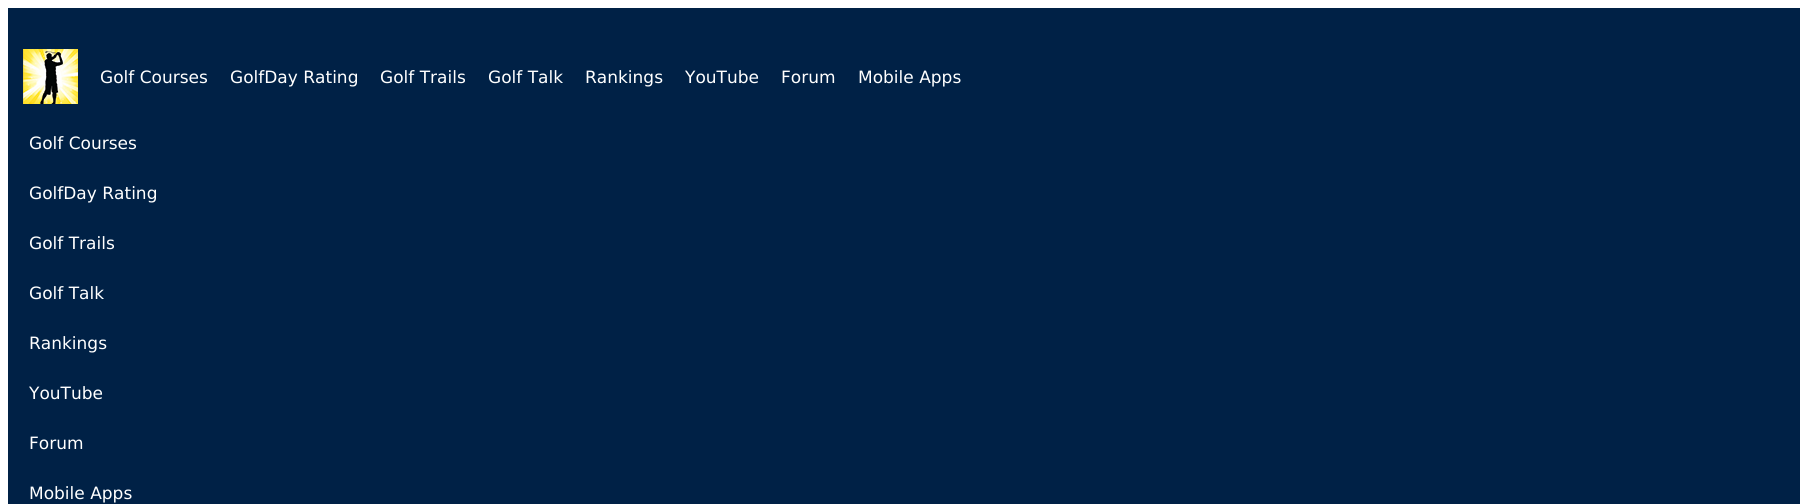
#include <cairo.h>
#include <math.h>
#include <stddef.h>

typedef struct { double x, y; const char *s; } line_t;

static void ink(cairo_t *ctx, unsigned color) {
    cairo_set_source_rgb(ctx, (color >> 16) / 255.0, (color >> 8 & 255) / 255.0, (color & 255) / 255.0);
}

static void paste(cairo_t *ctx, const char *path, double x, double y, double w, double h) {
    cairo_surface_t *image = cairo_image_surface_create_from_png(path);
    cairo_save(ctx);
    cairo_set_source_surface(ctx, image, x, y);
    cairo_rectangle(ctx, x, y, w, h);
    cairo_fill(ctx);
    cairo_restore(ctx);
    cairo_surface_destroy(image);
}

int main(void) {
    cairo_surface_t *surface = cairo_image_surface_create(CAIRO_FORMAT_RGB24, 1808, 504);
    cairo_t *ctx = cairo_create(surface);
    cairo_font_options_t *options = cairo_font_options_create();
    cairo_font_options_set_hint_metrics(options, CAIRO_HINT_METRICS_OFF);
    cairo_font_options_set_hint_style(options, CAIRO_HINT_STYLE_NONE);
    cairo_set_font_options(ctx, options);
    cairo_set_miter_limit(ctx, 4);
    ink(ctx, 0xFFFFFF);
    cairo_paint(ctx);
    ink(ctx, 0x002146);
    cairo_rectangle(ctx, 8, 8, 1792, 496);
    cairo_fill(ctx);
    paste(ctx, "media/1.png", 23, 49, 55, 55);
    cairo_select_font_face(ctx, "DejaVu Sans", CAIRO_FONT_SLANT_NORMAL, CAIRO_FONT_WEIGHT_NORMAL);
    cairo_set_font_size(ctx, 17);
    ink(ctx, 0xFFFFFF);
    {
        static const line_t items[] = {
            {100, 83, "Golf Courses"},
            {230, 83, "GolfDay Rating"},
            {380, 83, "Golf Trails"},
            {488, 83, "Golf Talk"},
            {585, 83, "Rankings"},
            {685, 83, "YouTube"},
            {781, 83, "Forum"},
            {858, 83, "Mobile Apps"},
            {29, 149, "Golf Courses"},
            {29, 199, "GolfDay Rating"},
            {29, 249, "Golf Trails"},
            {29, 299, "Golf Talk"},
            {29, 349, "Rankings"},
            {29, 399, "YouTube"},
            {29, 449, "Forum"},
            {29, 499, "Mobile Apps"},
        };
        for (size_t i = 0; i < sizeof items / sizeof *items; i++) {
            cairo_move_to(ctx, items[i].x, items[i].y);
            cairo_show_text(ctx, items[i].s);
        }
    }
    cairo_surface_write_to_png(surface, "image.png");
    cairo_font_options_destroy(options);
    cairo_destroy(ctx);
    cairo_surface_destroy(surface);
    return 0;
}
